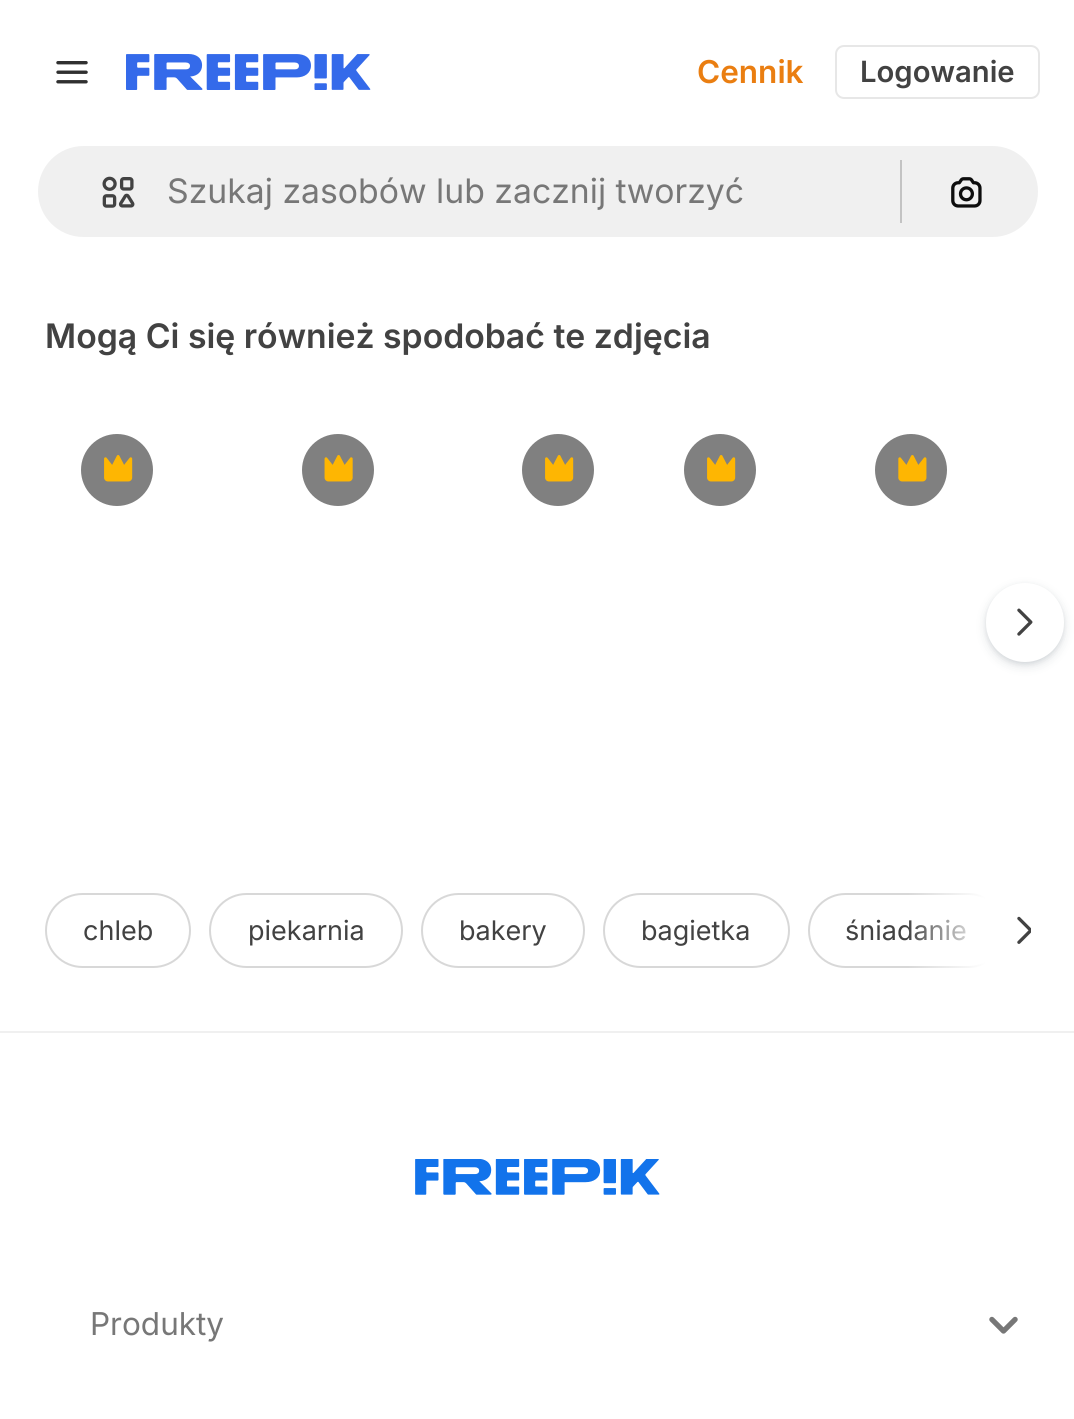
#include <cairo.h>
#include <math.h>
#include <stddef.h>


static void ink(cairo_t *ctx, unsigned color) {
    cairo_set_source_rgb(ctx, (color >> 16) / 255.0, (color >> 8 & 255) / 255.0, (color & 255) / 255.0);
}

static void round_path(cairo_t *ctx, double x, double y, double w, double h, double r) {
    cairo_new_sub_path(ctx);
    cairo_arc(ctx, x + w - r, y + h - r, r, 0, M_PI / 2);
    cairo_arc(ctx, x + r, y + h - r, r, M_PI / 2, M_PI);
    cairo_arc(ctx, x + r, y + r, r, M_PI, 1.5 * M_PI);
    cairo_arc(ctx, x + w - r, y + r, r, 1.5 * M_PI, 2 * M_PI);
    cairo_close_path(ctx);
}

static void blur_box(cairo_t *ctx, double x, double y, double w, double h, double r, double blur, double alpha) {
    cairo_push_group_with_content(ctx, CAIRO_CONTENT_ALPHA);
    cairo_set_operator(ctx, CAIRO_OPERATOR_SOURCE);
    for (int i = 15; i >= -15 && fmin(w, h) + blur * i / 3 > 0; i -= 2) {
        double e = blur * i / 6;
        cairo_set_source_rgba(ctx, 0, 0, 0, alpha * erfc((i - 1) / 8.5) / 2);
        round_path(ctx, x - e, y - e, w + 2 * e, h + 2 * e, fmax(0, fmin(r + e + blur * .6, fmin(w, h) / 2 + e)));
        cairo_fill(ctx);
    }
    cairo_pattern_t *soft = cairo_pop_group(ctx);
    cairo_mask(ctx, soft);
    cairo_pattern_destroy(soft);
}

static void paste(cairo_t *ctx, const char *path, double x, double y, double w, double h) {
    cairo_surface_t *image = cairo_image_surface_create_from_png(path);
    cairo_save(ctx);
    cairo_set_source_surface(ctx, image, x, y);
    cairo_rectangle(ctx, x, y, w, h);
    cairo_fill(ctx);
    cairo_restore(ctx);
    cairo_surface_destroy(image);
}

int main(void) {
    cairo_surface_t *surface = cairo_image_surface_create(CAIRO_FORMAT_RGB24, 1074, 1419);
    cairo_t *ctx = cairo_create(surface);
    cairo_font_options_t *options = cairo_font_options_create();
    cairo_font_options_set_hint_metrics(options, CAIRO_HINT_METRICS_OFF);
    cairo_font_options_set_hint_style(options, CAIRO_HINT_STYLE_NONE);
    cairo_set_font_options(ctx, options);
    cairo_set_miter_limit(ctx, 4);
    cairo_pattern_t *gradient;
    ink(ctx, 0xFFFFFF);
    cairo_paint(ctx);
    paste(ctx, "media/1.png", 56, 61, 32, 23);
    paste(ctx, "media/2.png", 126, 54, 245, 36);
    cairo_select_font_face(ctx, "Inter SemiBold", CAIRO_FONT_SLANT_NORMAL, CAIRO_FONT_WEIGHT_NORMAL);
    cairo_set_font_size(ctx, 31.5);
    ink(ctx, 0xEA7E11);
    cairo_move_to(ctx, 697, 83);
    cairo_show_text(ctx, "Cennik");
    round_path(ctx, 836, 46, 203, 52, 8);
    ink(ctx, 0xE7E7E7);
    cairo_stroke(ctx);
    cairo_set_font_size(ctx, 29.25);
    ink(ctx, 0x424242);
    cairo_move_to(ctx, 860, 82);
    cairo_show_text(ctx, "Logowanie");
    ink(ctx, 0xF0F0F0);
    round_path(ctx, 37, 145, 1002, 93, 46.5);
    cairo_fill_preserve(ctx);
    ink(ctx, 0xFFFFFF);
    cairo_stroke(ctx);
    paste(ctx, "media/3.png", 102, 176, 33, 32);
    cairo_select_font_face(ctx, "Inter", CAIRO_FONT_SLANT_NORMAL, CAIRO_FONT_WEIGHT_NORMAL);
    cairo_set_font_size(ctx, 33.75);
    ink(ctx, 0x777777);
    cairo_move_to(ctx, 167, 203);
    cairo_show_text(ctx, "Szukaj zasobów lub zacznij tworzyć");
    ink(ctx, 0xC3C3C3);
    cairo_rectangle(ctx, 900, 160, 2, 63);
    cairo_fill(ctx);
    paste(ctx, "media/4.png", 951, 177, 31, 31);
    cairo_select_font_face(ctx, "Inter SemiBold", CAIRO_FONT_SLANT_NORMAL, CAIRO_FONT_WEIGHT_NORMAL);
    ink(ctx, 0x424242);
    cairo_move_to(ctx, 45, 348);
    cairo_show_text(ctx, "Mogą Ci się również spodobać te zdjęcia");
    ink(ctx, 0x808080);
    cairo_new_path(ctx);
    cairo_arc(ctx, 117, 470, 36, 0, 2 * M_PI);
    cairo_fill(ctx);
    paste(ctx, "media/5.png", 104, 455, 29, 27);
    cairo_arc(ctx, 338, 470, 36, 0, 2 * M_PI);
    cairo_fill(ctx);
    paste(ctx, "media/6.png", 324, 455, 29, 27);
    cairo_arc(ctx, 558, 470, 36, 0, 2 * M_PI);
    cairo_fill(ctx);
    paste(ctx, "media/5.png", 545, 455, 29, 27);
    cairo_arc(ctx, 720, 470, 36, 0, 2 * M_PI);
    cairo_fill(ctx);
    paste(ctx, "media/5.png", 707, 455, 29, 27);
    cairo_arc(ctx, 911, 470, 36, 0, 2 * M_PI);
    cairo_fill(ctx);
    paste(ctx, "media/7.png", 898, 455, 29, 27);
    ink(ctx, 0x374957);
    blur_box(ctx, 986, 587, 78, 79, 39, 5.5, 0.15);
    blur_box(ctx, 986, 585, 78, 79, 39, 2, 0.1);
    ink(ctx, 0xFFFFFF);
    round_path(ctx, 986, 583, 78, 79, 39);
    cairo_fill(ctx);
    paste(ctx, "media/8.png", 1017, 608, 16, 28);
    round_path(ctx, 46, 894, 144, 73, 36.5);
    ink(ctx, 0xD8D8D8);
    cairo_stroke(ctx);
    cairo_select_font_face(ctx, "Inter", CAIRO_FONT_SLANT_NORMAL, CAIRO_FONT_WEIGHT_NORMAL);
    cairo_set_font_size(ctx, 27);
    ink(ctx, 0x424242);
    cairo_move_to(ctx, 83, 940);
    cairo_show_text(ctx, "chleb");
    round_path(ctx, 210, 894, 192, 73, 36.5);
    ink(ctx, 0xD8D8D8);
    cairo_stroke(ctx);
    ink(ctx, 0x424242);
    cairo_move_to(ctx, 248, 940);
    cairo_show_text(ctx, "piekarnia");
    round_path(ctx, 422, 894, 162, 73, 36.5);
    ink(ctx, 0xD8D8D8);
    cairo_stroke(ctx);
    ink(ctx, 0x424242);
    cairo_move_to(ctx, 459, 940);
    cairo_show_text(ctx, "bakery");
    round_path(ctx, 604, 894, 185, 73, 36.5);
    ink(ctx, 0xD8D8D8);
    cairo_stroke(ctx);
    ink(ctx, 0x424242);
    cairo_move_to(ctx, 641, 940);
    cairo_show_text(ctx, "bagietka");
    round_path(ctx, 809, 894, 196, 73, 36.5);
    ink(ctx, 0xD8D8D8);
    cairo_stroke(ctx);
    ink(ctx, 0x424242);
    cairo_move_to(ctx, 845, 940);
    cairo_show_text(ctx, "śniadanie");
    ink(ctx, 0xFFFFFF);
    cairo_rectangle(ctx, 986, 897, 20, 67);
    cairo_fill(ctx);
    gradient = cairo_pattern_create_linear(986, 930, 907, 930);
    cairo_pattern_add_color_stop_rgba(gradient, 0, 1, 1, 1, 1);
    cairo_pattern_add_color_stop_rgba(gradient, 1, 1, 1, 1, 0);
    cairo_set_source(ctx, gradient);
    cairo_pattern_destroy(gradient);
    cairo_rectangle(ctx, 909, 893, 77, 75);
    cairo_fill(ctx);
    paste(ctx, "media/9.png", 1017, 916, 14, 28);
    ink(ctx, 0xF0F0F0);
    cairo_rectangle(ctx, 0, 1031, 1074, 2);
    cairo_fill(ctx);
    paste(ctx, "media/10.png", 415, 1159, 245, 36);
    cairo_set_font_size(ctx, 31.5);
    ink(ctx, 0x777777);
    cairo_move_to(ctx, 90, 1335);
    cairo_show_text(ctx, "Produkty");
    paste(ctx, "media/11.png", 989, 1316, 29, 18);
    cairo_surface_write_to_png(surface, "image.png");
    cairo_font_options_destroy(options);
    cairo_destroy(ctx);
    cairo_surface_destroy(surface);
    return 0;
}
